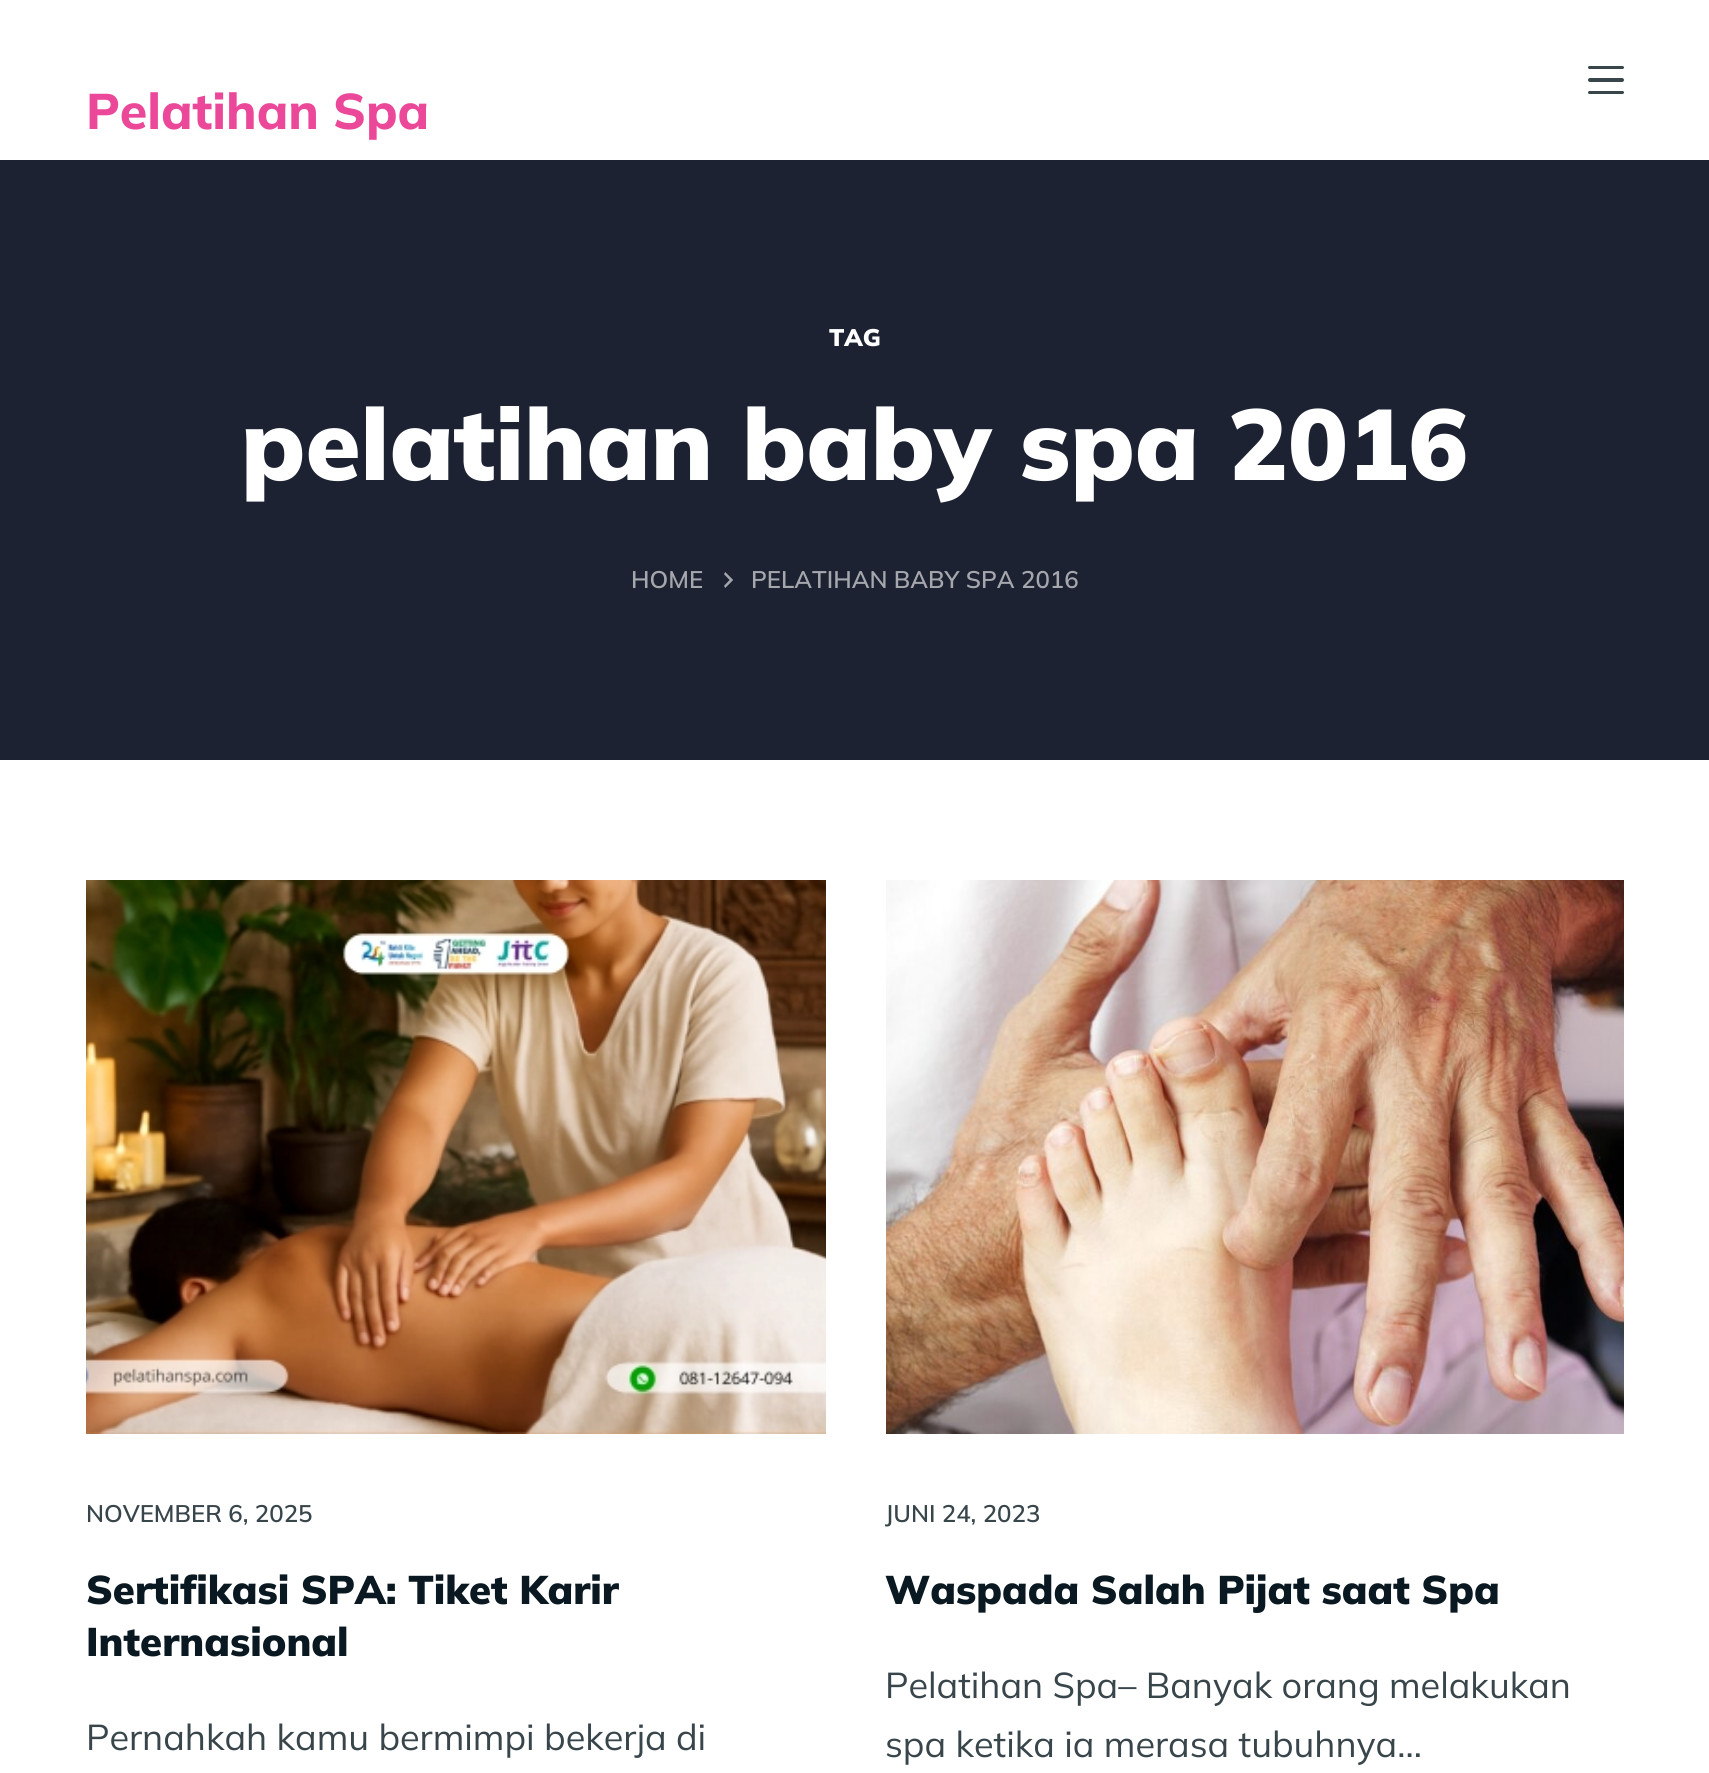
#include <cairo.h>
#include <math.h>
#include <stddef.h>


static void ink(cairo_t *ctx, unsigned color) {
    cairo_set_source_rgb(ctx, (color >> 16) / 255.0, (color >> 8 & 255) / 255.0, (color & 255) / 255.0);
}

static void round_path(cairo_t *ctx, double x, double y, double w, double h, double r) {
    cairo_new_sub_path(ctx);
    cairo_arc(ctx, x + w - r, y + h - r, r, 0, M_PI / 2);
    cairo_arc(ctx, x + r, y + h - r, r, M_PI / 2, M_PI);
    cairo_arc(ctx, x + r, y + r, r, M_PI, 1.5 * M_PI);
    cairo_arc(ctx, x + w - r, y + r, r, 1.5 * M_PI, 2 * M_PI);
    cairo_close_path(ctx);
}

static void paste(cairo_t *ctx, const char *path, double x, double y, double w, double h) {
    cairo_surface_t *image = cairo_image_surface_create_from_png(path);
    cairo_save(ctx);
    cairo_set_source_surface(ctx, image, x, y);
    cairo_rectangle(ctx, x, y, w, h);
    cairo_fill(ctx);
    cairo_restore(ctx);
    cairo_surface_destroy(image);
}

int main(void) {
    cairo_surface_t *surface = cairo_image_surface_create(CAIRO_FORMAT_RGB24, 1709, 1773);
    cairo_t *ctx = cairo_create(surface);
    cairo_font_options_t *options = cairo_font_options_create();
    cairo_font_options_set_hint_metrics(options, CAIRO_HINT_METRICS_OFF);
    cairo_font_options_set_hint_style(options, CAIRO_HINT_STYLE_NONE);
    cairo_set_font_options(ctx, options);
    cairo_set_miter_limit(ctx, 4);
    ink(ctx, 0xFFFFFF);
    cairo_paint(ctx);
    ink(ctx, 0x38454A);
    round_path(ctx, 1588, 66, 36, 3, 1.5);
    cairo_fill(ctx);
    round_path(ctx, 1588, 78, 36, 4, 2);
    cairo_fill(ctx);
    round_path(ctx, 1588, 91, 36, 3, 1.5);
    cairo_fill(ctx);
    cairo_select_font_face(ctx, "Mulish ExtraBold", CAIRO_FONT_SLANT_NORMAL, CAIRO_FONT_WEIGHT_NORMAL);
    cairo_set_font_size(ctx, 50);
    ink(ctx, 0xEB4899);
    cairo_move_to(ctx, 86, 129);
    cairo_show_text(ctx, "Pelatihan Spa");
    ink(ctx, 0x1D2233);
    cairo_rectangle(ctx, 0, 160, 1709, 600);
    cairo_fill(ctx);
    cairo_select_font_face(ctx, "Mulish Black", CAIRO_FONT_SLANT_NORMAL, CAIRO_FONT_WEIGHT_NORMAL);
    cairo_set_font_size(ctx, 24);
    ink(ctx, 0xFFFFFF);
    cairo_move_to(ctx, 829, 346);
    cairo_show_text(ctx, "TAG");
    cairo_set_font_size(ctx, 100);
    cairo_move_to(ctx, 241, 480);
    cairo_show_text(ctx, "pelatihan baby spa 2016");
    cairo_select_font_face(ctx, "Mulish SemiBold", CAIRO_FONT_SLANT_NORMAL, CAIRO_FONT_WEIGHT_NORMAL);
    cairo_set_font_size(ctx, 24);
    ink(ctx, 0xA5A7AD);
    cairo_move_to(ctx, 631, 588);
    cairo_show_text(ctx, "HOME");
    paste(ctx, "media/1.png", 724, 572, 9, 16);
    cairo_move_to(ctx, 751, 588);
    cairo_show_text(ctx, "PELATIHAN BABY SPA 2016");
    paste(ctx, "media/2.png", 86, 880, 740, 554);
    ink(ctx, 0x38454A);
    cairo_move_to(ctx, 86, 1522);
    cairo_show_text(ctx, "NOVEMBER 6, 2025");
    cairo_select_font_face(ctx, "Mulish Black", CAIRO_FONT_SLANT_NORMAL, CAIRO_FONT_WEIGHT_NORMAL);
    cairo_set_font_size(ctx, 40);
    ink(ctx, 0x0A1821);
    cairo_move_to(ctx, 86, 1604);
    cairo_show_text(ctx, "Sertifikasi SPA: Tiket Karir");
    cairo_move_to(ctx, 86, 1656);
    cairo_show_text(ctx, "Internasional");
    cairo_select_font_face(ctx, "Mulish", CAIRO_FONT_SLANT_NORMAL, CAIRO_FONT_WEIGHT_NORMAL);
    cairo_set_font_size(ctx, 36);
    ink(ctx, 0x38454A);
    cairo_move_to(ctx, 86, 1750);
    cairo_show_text(ctx, "Pernahkah kamu bermimpi bekerja di");
    paste(ctx, "media/3.png", 886, 880, 738, 554);
    cairo_select_font_face(ctx, "Mulish SemiBold", CAIRO_FONT_SLANT_NORMAL, CAIRO_FONT_WEIGHT_NORMAL);
    cairo_set_font_size(ctx, 24);
    cairo_move_to(ctx, 885, 1522);
    cairo_show_text(ctx, "JUNI 24, 2023");
    cairo_select_font_face(ctx, "Mulish Black", CAIRO_FONT_SLANT_NORMAL, CAIRO_FONT_WEIGHT_NORMAL);
    cairo_set_font_size(ctx, 40);
    ink(ctx, 0x0A1821);
    cairo_move_to(ctx, 885, 1604);
    cairo_show_text(ctx, "Waspada Salah Pijat saat Spa");
    cairo_select_font_face(ctx, "Mulish", CAIRO_FONT_SLANT_NORMAL, CAIRO_FONT_WEIGHT_NORMAL);
    cairo_set_font_size(ctx, 36);
    ink(ctx, 0x38454A);
    cairo_move_to(ctx, 885, 1698);
    cairo_show_text(ctx, "Pelatihan Spa– Banyak orang melakukan");
    cairo_move_to(ctx, 885, 1757);
    cairo_show_text(ctx, "spa ketika ia merasa tubuhnya…");
    cairo_surface_write_to_png(surface, "image.png");
    cairo_font_options_destroy(options);
    cairo_destroy(ctx);
    cairo_surface_destroy(surface);
    return 0;
}
